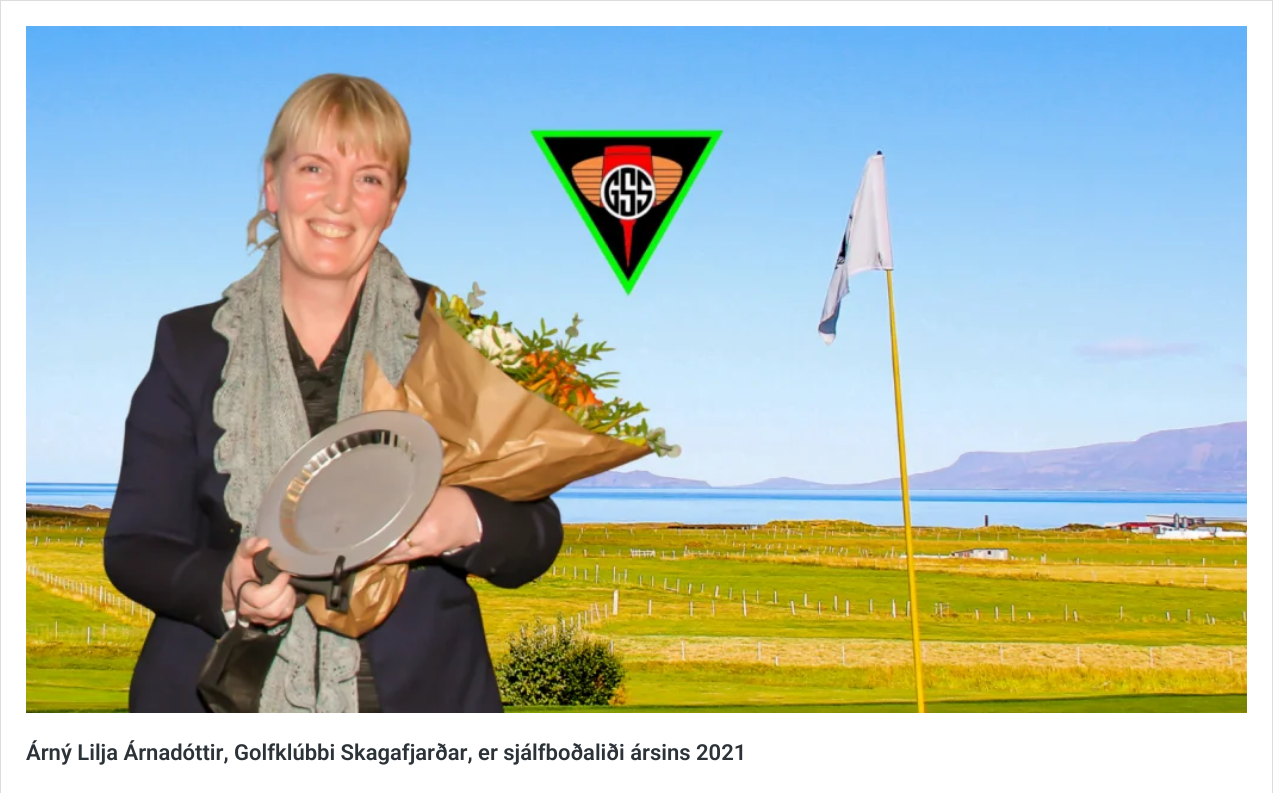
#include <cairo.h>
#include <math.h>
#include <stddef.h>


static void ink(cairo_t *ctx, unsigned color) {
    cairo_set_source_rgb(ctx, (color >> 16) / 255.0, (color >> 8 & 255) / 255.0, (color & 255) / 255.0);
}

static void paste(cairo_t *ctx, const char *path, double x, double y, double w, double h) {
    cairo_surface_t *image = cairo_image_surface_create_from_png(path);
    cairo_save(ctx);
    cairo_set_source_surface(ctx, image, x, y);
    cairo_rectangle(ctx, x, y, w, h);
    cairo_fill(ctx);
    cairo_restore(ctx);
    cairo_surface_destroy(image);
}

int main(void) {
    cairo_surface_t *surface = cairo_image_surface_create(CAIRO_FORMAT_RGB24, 1273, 793);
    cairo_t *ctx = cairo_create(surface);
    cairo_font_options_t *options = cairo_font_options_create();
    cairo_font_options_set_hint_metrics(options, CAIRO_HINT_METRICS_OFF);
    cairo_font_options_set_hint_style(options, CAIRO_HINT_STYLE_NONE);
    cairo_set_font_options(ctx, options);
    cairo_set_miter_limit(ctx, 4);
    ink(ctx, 0xFFFFFF);
    cairo_paint(ctx);
    cairo_rectangle(ctx, 0.5, 0.5, 1272, 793);
    ink(ctx, 0xDCDCDE);
    cairo_set_line_width(ctx, 1);
    cairo_stroke(ctx);
    paste(ctx, "media/1.png", 26, 26, 1221, 687);
    cairo_select_font_face(ctx, "Roboto SemiBold", CAIRO_FONT_SLANT_NORMAL, CAIRO_FONT_WEIGHT_NORMAL);
    cairo_set_font_size(ctx, 22);
    ink(ctx, 0x2C3338);
    cairo_move_to(ctx, 26, 760);
    cairo_show_text(ctx, "Árný Lilja Árnadóttir, Golfklúbbi Skagafjarðar, er sjálfboðaliði ársins 2021");
    cairo_surface_write_to_png(surface, "image.png");
    cairo_font_options_destroy(options);
    cairo_destroy(ctx);
    cairo_surface_destroy(surface);
    return 0;
}
